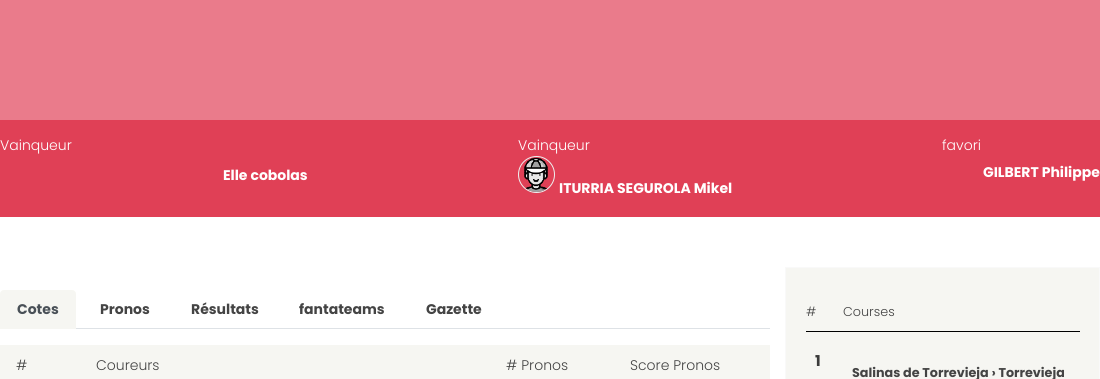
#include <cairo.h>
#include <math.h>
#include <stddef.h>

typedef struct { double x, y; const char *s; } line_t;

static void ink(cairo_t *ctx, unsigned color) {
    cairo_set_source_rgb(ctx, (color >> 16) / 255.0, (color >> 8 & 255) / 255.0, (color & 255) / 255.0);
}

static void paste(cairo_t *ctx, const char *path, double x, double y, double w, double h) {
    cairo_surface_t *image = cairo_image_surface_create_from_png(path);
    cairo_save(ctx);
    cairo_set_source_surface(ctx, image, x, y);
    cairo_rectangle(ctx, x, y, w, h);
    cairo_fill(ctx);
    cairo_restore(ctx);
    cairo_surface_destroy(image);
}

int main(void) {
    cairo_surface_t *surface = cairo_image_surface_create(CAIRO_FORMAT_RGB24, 1100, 379);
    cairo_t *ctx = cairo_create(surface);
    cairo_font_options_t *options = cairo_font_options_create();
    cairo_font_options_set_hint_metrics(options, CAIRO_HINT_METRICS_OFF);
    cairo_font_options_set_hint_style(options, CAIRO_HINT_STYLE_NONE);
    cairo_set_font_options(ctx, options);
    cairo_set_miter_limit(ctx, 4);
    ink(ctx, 0xFFFFFF);
    cairo_paint(ctx);
    ink(ctx, 0xEA7B8B);
    cairo_rectangle(ctx, 0, 0, 1100, 120);
    cairo_fill(ctx);
    ink(ctx, 0xE04056);
    cairo_rectangle(ctx, 0, 120, 1100, 97);
    cairo_fill(ctx);
    cairo_select_font_face(ctx, "Poppins Light", CAIRO_FONT_SLANT_NORMAL, CAIRO_FONT_WEIGHT_NORMAL);
    cairo_set_font_size(ctx, 14);
    ink(ctx, 0xFFFFFF);
    cairo_move_to(ctx, 0, 150);
    cairo_show_text(ctx, "Vainqueur");
    cairo_select_font_face(ctx, "Poppins", CAIRO_FONT_SLANT_NORMAL, CAIRO_FONT_WEIGHT_BOLD);
    cairo_move_to(ctx, 223, 180);
    cairo_show_text(ctx, "Elle cobolas");
    cairo_select_font_face(ctx, "Poppins Light", CAIRO_FONT_SLANT_NORMAL, CAIRO_FONT_WEIGHT_NORMAL);
    cairo_move_to(ctx, 518, 150);
    cairo_show_text(ctx, "Vainqueur");
    cairo_new_path(ctx);
    cairo_arc(ctx, 536.5, 174.5, 18, 0, 2 * M_PI);
    ink(ctx, 0xEEEEEE);
    cairo_set_line_width(ctx, 1);
    cairo_stroke(ctx);
    paste(ctx, "media/1.png", 524, 157, 24, 35);
    cairo_select_font_face(ctx, "Poppins", CAIRO_FONT_SLANT_NORMAL, CAIRO_FONT_WEIGHT_BOLD);
    ink(ctx, 0xFFFFFF);
    cairo_move_to(ctx, 559, 193);
    cairo_show_text(ctx, "ITURRIA SEGUROLA Mikel");
    cairo_select_font_face(ctx, "Poppins Light", CAIRO_FONT_SLANT_NORMAL, CAIRO_FONT_WEIGHT_NORMAL);
    cairo_move_to(ctx, 942, 150);
    cairo_show_text(ctx, "favori");
    cairo_select_font_face(ctx, "Poppins", CAIRO_FONT_SLANT_NORMAL, CAIRO_FONT_WEIGHT_BOLD);
    cairo_move_to(ctx, 983, 177);
    cairo_show_text(ctx, "GILBERT Philippe");
    ink(ctx, 0xDEE2E6);
    cairo_rectangle(ctx, 76, 328, 694, 1);
    cairo_fill(ctx);
    ink(ctx, 0xF6F6F2);
    cairo_new_path(ctx);
    cairo_move_to(ctx, 4, 290.5);
    cairo_line_to(ctx, 72, 290.5);
    cairo_curve_to(ctx, 74, 290.5, 75.5, 292, 75.5, 294);
    cairo_line_to(ctx, 75.5, 328.5);
    cairo_line_to(ctx, 0.5, 328.5);
    cairo_line_to(ctx, 0.5, 294);
    cairo_curve_to(ctx, 0.5, 292, 2, 290.5, 4, 290.5);
    cairo_close_path(ctx);
    cairo_fill_preserve(ctx);
    cairo_stroke(ctx);
    ink(ctx, 0x495057);
    cairo_move_to(ctx, 17, 314);
    cairo_show_text(ctx, "Cotes");
    ink(ctx, 0x444444);
    {
        static const line_t items[] = {
            {100, 314, "Pronos"},
            {191, 314, "Résultats"},
            {299, 314, "fantateams"},
            {426, 314, "Gazette"},
        };
        for (size_t i = 0; i < sizeof items / sizeof *items; i++) {
            cairo_move_to(ctx, items[i].x, items[i].y);
            cairo_show_text(ctx, items[i].s);
        }
    }
    ink(ctx, 0xF6F6F2);
    cairo_rectangle(ctx, 0, 345, 770, 34);
    cairo_fill(ctx);
    cairo_select_font_face(ctx, "Poppins Light", CAIRO_FONT_SLANT_NORMAL, CAIRO_FONT_WEIGHT_NORMAL);
    ink(ctx, 0x444444);
    {
        static const line_t items[] = {
            {16, 370, "#"},
            {96, 370, "Coureurs"},
            {506, 370, "# Pronos"},
            {630, 370, "Score Pronos"},
        };
        for (size_t i = 0; i < sizeof items / sizeof *items; i++) {
            cairo_move_to(ctx, items[i].x, items[i].y);
            cairo_show_text(ctx, items[i].s);
        }
    }
    ink(ctx, 0xF6F6F2);
    cairo_rectangle(ctx, 785.5, 267.5, 314, 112);
    cairo_fill_preserve(ctx);
    ink(ctx, 0xF9F9F9);
    cairo_stroke(ctx);
    ink(ctx, 0x000000);
    cairo_rectangle(ctx, 806, 331, 274, 1);
    cairo_fill(ctx);
    cairo_set_font_size(ctx, 12.75);
    ink(ctx, 0x444444);
    cairo_move_to(ctx, 806, 316);
    cairo_show_text(ctx, "#");
    cairo_move_to(ctx, 843, 316);
    cairo_show_text(ctx, "Courses");
    cairo_select_font_face(ctx, "Poppins", CAIRO_FONT_SLANT_NORMAL, CAIRO_FONT_WEIGHT_BOLD);
    cairo_set_font_size(ctx, 15);
    ink(ctx, 0x3B3B3B);
    cairo_move_to(ctx, 815, 366);
    cairo_show_text(ctx, "1");
    cairo_set_font_size(ctx, 12.75);
    ink(ctx, 0x444444);
    cairo_move_to(ctx, 852, 377);
    cairo_show_text(ctx, "Salinas de Torrevieja › Torrevieja");
    cairo_surface_write_to_png(surface, "image.png");
    cairo_font_options_destroy(options);
    cairo_destroy(ctx);
    cairo_surface_destroy(surface);
    return 0;
}
